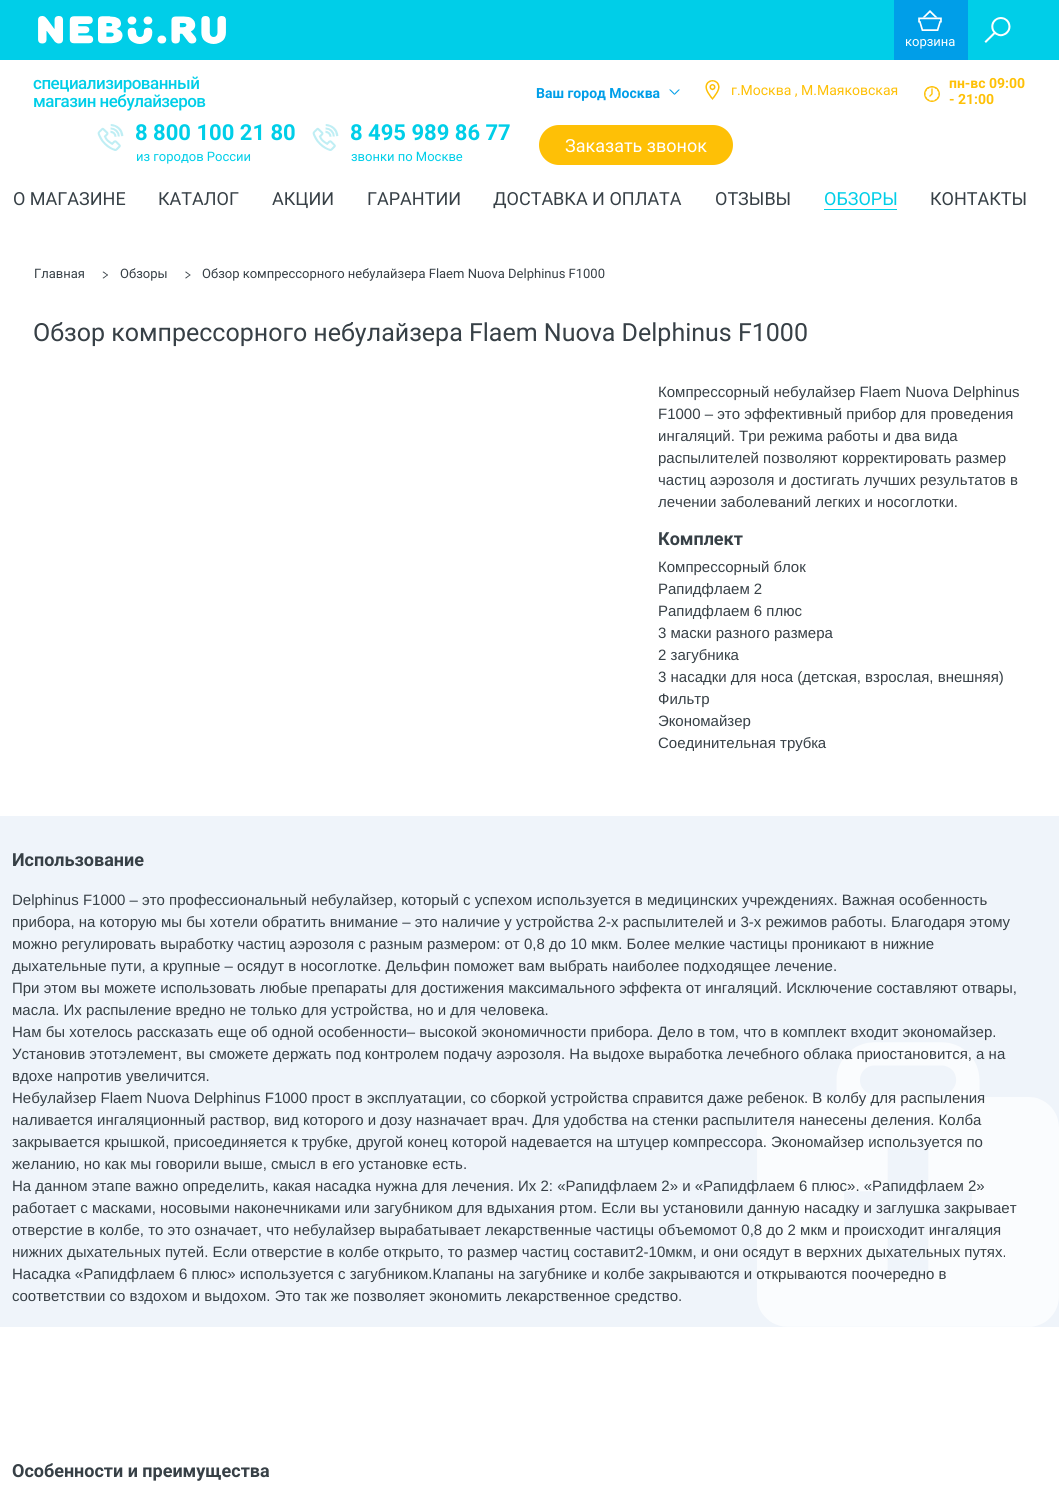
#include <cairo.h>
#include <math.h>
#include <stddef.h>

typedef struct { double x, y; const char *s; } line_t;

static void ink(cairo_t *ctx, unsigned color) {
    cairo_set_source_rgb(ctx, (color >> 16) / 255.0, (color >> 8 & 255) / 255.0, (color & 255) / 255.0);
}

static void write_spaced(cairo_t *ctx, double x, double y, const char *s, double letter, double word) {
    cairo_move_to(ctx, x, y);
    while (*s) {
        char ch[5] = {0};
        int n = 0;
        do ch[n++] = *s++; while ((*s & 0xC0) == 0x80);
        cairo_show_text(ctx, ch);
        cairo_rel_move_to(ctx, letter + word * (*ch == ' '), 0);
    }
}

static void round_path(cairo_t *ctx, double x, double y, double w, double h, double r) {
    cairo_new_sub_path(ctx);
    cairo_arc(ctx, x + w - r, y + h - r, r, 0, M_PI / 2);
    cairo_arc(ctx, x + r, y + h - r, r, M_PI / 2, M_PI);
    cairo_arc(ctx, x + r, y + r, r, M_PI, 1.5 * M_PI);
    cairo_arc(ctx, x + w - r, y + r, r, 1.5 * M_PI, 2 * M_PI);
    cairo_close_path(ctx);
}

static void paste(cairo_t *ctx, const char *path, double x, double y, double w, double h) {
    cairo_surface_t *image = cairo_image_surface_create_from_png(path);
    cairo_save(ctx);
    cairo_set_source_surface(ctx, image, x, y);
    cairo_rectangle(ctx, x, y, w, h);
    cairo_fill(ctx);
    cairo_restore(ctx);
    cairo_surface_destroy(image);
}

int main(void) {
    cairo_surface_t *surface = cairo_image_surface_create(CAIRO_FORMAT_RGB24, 1059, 1494);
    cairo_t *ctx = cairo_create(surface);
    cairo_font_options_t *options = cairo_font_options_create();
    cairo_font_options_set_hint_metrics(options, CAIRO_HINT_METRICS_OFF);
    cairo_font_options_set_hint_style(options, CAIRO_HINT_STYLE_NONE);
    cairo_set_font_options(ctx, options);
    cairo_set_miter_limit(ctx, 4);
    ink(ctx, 0xFFFFFF);
    cairo_paint(ctx);
    ink(ctx, 0x00CEE8);
    cairo_rectangle(ctx, 0, 0, 1059, 60);
    cairo_fill(ctx);
    paste(ctx, "media/1.png", 38, 16, 188, 28);
    paste(ctx, "media/2.png", 984, 17, 27, 26);
    ink(ctx, 0x009EE8);
    cairo_rectangle(ctx, 894, 0, 74, 60);
    cairo_fill(ctx);
    paste(ctx, "media/3.png", 918, 10, 24, 21);
    cairo_select_font_face(ctx, "Roboto", CAIRO_FONT_SLANT_NORMAL, CAIRO_FONT_WEIGHT_NORMAL);
    cairo_set_font_size(ctx, 13);
    ink(ctx, 0xFFFFFF);
    cairo_move_to(ctx, 905, 46);
    cairo_show_text(ctx, "корзина");
    cairo_select_font_face(ctx, "Roboto Medium", CAIRO_FONT_SLANT_NORMAL, CAIRO_FONT_WEIGHT_NORMAL);
    cairo_set_font_size(ctx, 17);
    ink(ctx, 0x00CEE8);
    write_spaced(ctx, 33, 89, "специализированный", -0.5, 0);
    write_spaced(ctx, 33, 107, "магазин небулайзеров", -0.5, 0);
    paste(ctx, "media/4.png", 924, 86, 16, 16);
    cairo_select_font_face(ctx, "Roboto", CAIRO_FONT_SLANT_NORMAL, CAIRO_FONT_WEIGHT_BOLD);
    cairo_set_font_size(ctx, 14);
    ink(ctx, 0xFEC006);
    cairo_move_to(ctx, 949, 88);
    cairo_show_text(ctx, "пн-вс 09:00");
    cairo_move_to(ctx, 949, 104);
    cairo_show_text(ctx, "- 21:00");
    paste(ctx, "media/5.png", 97, 124, 27, 27);
    cairo_set_font_size(ctx, 22);
    ink(ctx, 0x00CEE8);
    cairo_move_to(ctx, 135, 140);
    cairo_show_text(ctx, "8 800 100 21 80");
    cairo_select_font_face(ctx, "Roboto", CAIRO_FONT_SLANT_NORMAL, CAIRO_FONT_WEIGHT_NORMAL);
    cairo_set_font_size(ctx, 13);
    cairo_move_to(ctx, 136, 161);
    cairo_show_text(ctx, "из городов России");
    paste(ctx, "media/5.png", 312, 124, 27, 27);
    cairo_select_font_face(ctx, "Roboto", CAIRO_FONT_SLANT_NORMAL, CAIRO_FONT_WEIGHT_BOLD);
    cairo_set_font_size(ctx, 22);
    cairo_move_to(ctx, 350, 140);
    cairo_show_text(ctx, "8 495 989 86 77");
    cairo_select_font_face(ctx, "Roboto", CAIRO_FONT_SLANT_NORMAL, CAIRO_FONT_WEIGHT_NORMAL);
    cairo_set_font_size(ctx, 13);
    cairo_move_to(ctx, 351, 161);
    cairo_show_text(ctx, "звонки по Москве");
    ink(ctx, 0xFEC006);
    round_path(ctx, 539, 125, 194, 40, 20);
    cairo_fill(ctx);
    cairo_set_font_size(ctx, 18);
    ink(ctx, 0xFFFFFF);
    cairo_move_to(ctx, 565, 152);
    cairo_show_text(ctx, "Заказать звонок");
    cairo_select_font_face(ctx, "Roboto", CAIRO_FONT_SLANT_NORMAL, CAIRO_FONT_WEIGHT_BOLD);
    cairo_set_font_size(ctx, 14);
    ink(ctx, 0x009EE8);
    cairo_move_to(ctx, 536, 98);
    cairo_show_text(ctx, "Ваш город Москва");
    cairo_new_path(ctx);
    cairo_move_to(ctx, 680, 89.5);
    cairo_line_to(ctx, 674.5, 95);
    cairo_line_to(ctx, 674.5, 93.5);
    cairo_line_to(ctx, 678.5, 89.5);
    cairo_close_path(ctx);
    cairo_fill(ctx);
    cairo_new_path(ctx);
    cairo_move_to(ctx, 674.5, 95);
    cairo_line_to(ctx, 669, 89.5);
    cairo_line_to(ctx, 670.5, 89.5);
    cairo_line_to(ctx, 674.5, 93.5);
    cairo_close_path(ctx);
    cairo_fill(ctx);
    paste(ctx, "media/6.png", 705, 80, 15, 20);
    cairo_select_font_face(ctx, "Roboto", CAIRO_FONT_SLANT_NORMAL, CAIRO_FONT_WEIGHT_NORMAL);
    ink(ctx, 0xFEC006);
    cairo_move_to(ctx, 731, 95);
    cairo_show_text(ctx, "г.Москва , М.Маяковская");
    cairo_set_font_size(ctx, 18);
    ink(ctx, 0x374046);
    {
        static const line_t items[] = {
            {13, 205, "О МАГАЗИНЕ"},
            {158, 205, "КАТАЛОГ"},
            {272, 205, "АКЦИИ"},
            {367, 205, "ГАРАНТИИ"},
            {493, 205, "ДОСТАВКА И ОПЛАТА"},
            {715, 205, "ОТЗЫВЫ"},
        };
        for (size_t i = 0; i < sizeof items / sizeof *items; i++) {
            cairo_move_to(ctx, items[i].x, items[i].y);
            cairo_show_text(ctx, items[i].s);
        }
    }
    ink(ctx, 0x00CEE8);
    cairo_move_to(ctx, 824, 205);
    cairo_show_text(ctx, "ОБЗОРЫ");
    cairo_rectangle(ctx, 824, 209, 73, 1);
    cairo_fill(ctx);
    ink(ctx, 0x374046);
    cairo_move_to(ctx, 930, 205);
    cairo_show_text(ctx, "КОНТАКТЫ");
    cairo_set_font_size(ctx, 13);
    cairo_move_to(ctx, 34, 278);
    cairo_show_text(ctx, "Главная");
    cairo_new_path(ctx);
    cairo_move_to(ctx, 103.5, 271.5);
    cairo_line_to(ctx, 108, 275);
    cairo_line_to(ctx, 107.5, 275.5);
    cairo_line_to(ctx, 102.5, 272);
    cairo_close_path(ctx);
    cairo_fill(ctx);
    cairo_new_path(ctx);
    cairo_move_to(ctx, 107.5, 274.5);
    cairo_line_to(ctx, 108, 275);
    cairo_line_to(ctx, 103.5, 278.5);
    cairo_line_to(ctx, 102.5, 278);
    cairo_close_path(ctx);
    cairo_fill(ctx);
    cairo_move_to(ctx, 120, 278);
    cairo_show_text(ctx, "Обзоры");
    cairo_new_path(ctx);
    cairo_move_to(ctx, 186, 271.5);
    cairo_line_to(ctx, 190.5, 275);
    cairo_line_to(ctx, 190, 275.5);
    cairo_line_to(ctx, 185, 272);
    cairo_close_path(ctx);
    cairo_fill(ctx);
    cairo_new_path(ctx);
    cairo_move_to(ctx, 190, 274.5);
    cairo_line_to(ctx, 190.5, 275);
    cairo_line_to(ctx, 186, 278.5);
    cairo_line_to(ctx, 185, 278);
    cairo_close_path(ctx);
    cairo_fill(ctx);
    cairo_move_to(ctx, 202, 278);
    cairo_show_text(ctx, "Обзор компрессорного небулайзера Flaem Nuova Delphinus F1000");
    cairo_set_font_size(ctx, 25);
    cairo_move_to(ctx, 33, 341);
    cairo_show_text(ctx, "Обзор компрессорного небулайзера Flaem Nuova Delphinus F1000");
    cairo_select_font_face(ctx, "Liberation Sans", CAIRO_FONT_SLANT_NORMAL, CAIRO_FONT_WEIGHT_NORMAL);
    cairo_set_font_size(ctx, 15);
    {
        static const line_t items[] = {
            {658, 397, "Компрессорный небулайзер Flaem Nuova Delphinus"},
            {658, 419, "F1000 – это эффективный прибор для проведения"},
            {658, 441, "ингаляций. Три режима работы и два вида"},
            {658, 463, "распылителей позволяют корректировать размер"},
            {658, 485, "частиц аэрозоля и достигать лучших результатов в"},
            {658, 507, "лечении заболеваний легких и носоглотки."},
        };
        for (size_t i = 0; i < sizeof items / sizeof *items; i++) {
            cairo_move_to(ctx, items[i].x, items[i].y);
            cairo_show_text(ctx, items[i].s);
        }
    }
    cairo_select_font_face(ctx, "Roboto", CAIRO_FONT_SLANT_NORMAL, CAIRO_FONT_WEIGHT_BOLD);
    cairo_set_font_size(ctx, 18);
    cairo_move_to(ctx, 658, 545);
    cairo_show_text(ctx, "Комплект");
    cairo_select_font_face(ctx, "Liberation Sans", CAIRO_FONT_SLANT_NORMAL, CAIRO_FONT_WEIGHT_NORMAL);
    cairo_set_font_size(ctx, 15);
    {
        static const line_t items[] = {
            {658, 572, "Компрессорный блок"},
            {658, 594, "Рапидфлаем 2"},
            {658, 616, "Рапидфлаем 6 плюс"},
            {658, 638, "3 маски разного размера"},
            {658, 660, "2 загубника"},
            {658, 682, "3 насадки для носа (детская, взрослая, внешняя)"},
            {658, 704, "Фильтр"},
            {658, 726, "Экономайзер"},
            {658, 748, "Соединительная трубка"},
        };
        for (size_t i = 0; i < sizeof items / sizeof *items; i++) {
            cairo_move_to(ctx, items[i].x, items[i].y);
            cairo_show_text(ctx, items[i].s);
        }
    }
    ink(ctx, 0xEFF4FA);
    cairo_rectangle(ctx, 0, 816, 1059, 511);
    cairo_fill(ctx);
    cairo_select_font_face(ctx, "Roboto", CAIRO_FONT_SLANT_NORMAL, CAIRO_FONT_WEIGHT_BOLD);
    cairo_set_font_size(ctx, 18);
    ink(ctx, 0x374046);
    cairo_move_to(ctx, 12, 866);
    cairo_show_text(ctx, "Использование");
    cairo_select_font_face(ctx, "Liberation Sans", CAIRO_FONT_SLANT_NORMAL, CAIRO_FONT_WEIGHT_NORMAL);
    cairo_set_font_size(ctx, 15);
    {
        static const line_t items[] = {
            {12, 905, "Delphinus F1000 – это профессиональный небулайзер, который с успехом используется в медицинских учреждениях. Важная особенность"},
            {12, 927, "прибора, на которую мы бы хотели обратить внимание – это наличие у устройства 2-х распылителей и 3-х режимов работы. Благодаря этому"},
            {12, 949, "можно регулировать выработку частиц аэрозоля с разным размером: от 0,8 до 10 мкм. Более мелкие частицы проникают в нижние"},
            {12, 971, "дыхательные пути, а крупные – осядут в носоглотке. Дельфин поможет вам выбрать наиболее подходящее лечение."},
            {12, 993, "При этом вы можете использовать любые препараты для достижения максимального эффекта от ингаляций. Исключение составляют отвары,"},
            {12, 1015, "масла. Их распыление вредно не только для устройства, но и для человека."},
            {12, 1037, "Нам бы хотелось рассказать еще об одной особенности– высокой экономичности прибора. Дело в том, что в комплект входит экономайзер."},
        };
        for (size_t i = 0; i < sizeof items / sizeof *items; i++) {
            cairo_move_to(ctx, items[i].x, items[i].y);
            cairo_show_text(ctx, items[i].s);
        }
    }
    paste(ctx, "media/7.png", 757, 1042, 302, 285);
    {
        static const line_t items[] = {
            {12, 1059, "Установив этотэлемент, вы сможете держать под контролем подачу аэрозоля. На выдохе выработка лечебного облака приостановится, а на"},
            {12, 1081, "вдохе напротив увеличится."},
            {12, 1103, "Небулайзер Flaem Nuova Delphinus F1000 прост в эксплуатации, со сборкой устройства справится даже ребенок. В колбу для распыления"},
            {12, 1125, "наливается ингаляционный раствор, вид которого и дозу назначает врач. Для удобства на стенки распылителя нанесены деления. Колба"},
            {12, 1147, "закрывается крышкой, присоединяется к трубке, другой конец которой надевается на штуцер компрессора. Экономайзер используется по"},
            {12, 1169, "желанию, но как мы говорили выше, смысл в его установке есть."},
            {12, 1191, "На данном этапе важно определить, какая насадка нужна для лечения. Их 2: «Рапидфлаем 2» и «Рапидфлаем 6 плюс». «Рапидфлаем 2»"},
            {12, 1213, "работает с масками, носовыми наконечниками или загубником для вдыхания ртом. Если вы установили данную насадку и заглушка закрывает"},
            {12, 1235, "отверстие в колбе, то это означает, что небулайзер вырабатывает лекарственные частицы объемомот 0,8 до 2 мкм и происходит ингаляция"},
            {12, 1257, "нижних дыхательных путей. Если отверстие в колбе открыто, то размер частиц составит2-10мкм, и они осядут в верхних дыхательных путях."},
            {12, 1279, "Насадка «Рапидфлаем 6 плюс» используется с загубником.Клапаны на загубнике и колбе закрываются и открываются поочередно в"},
            {12, 1301, "соответствии со вздохом и выдохом. Это так же позволяет экономить лекарственное средство."},
        };
        for (size_t i = 0; i < sizeof items / sizeof *items; i++) {
            cairo_move_to(ctx, items[i].x, items[i].y);
            cairo_show_text(ctx, items[i].s);
        }
    }
    cairo_select_font_face(ctx, "Roboto", CAIRO_FONT_SLANT_NORMAL, CAIRO_FONT_WEIGHT_BOLD);
    cairo_set_font_size(ctx, 18);
    cairo_move_to(ctx, 12, 1477);
    cairo_show_text(ctx, "Особенности и преимущества");
    cairo_surface_write_to_png(surface, "image.png");
    cairo_font_options_destroy(options);
    cairo_destroy(ctx);
    cairo_surface_destroy(surface);
    return 0;
}
